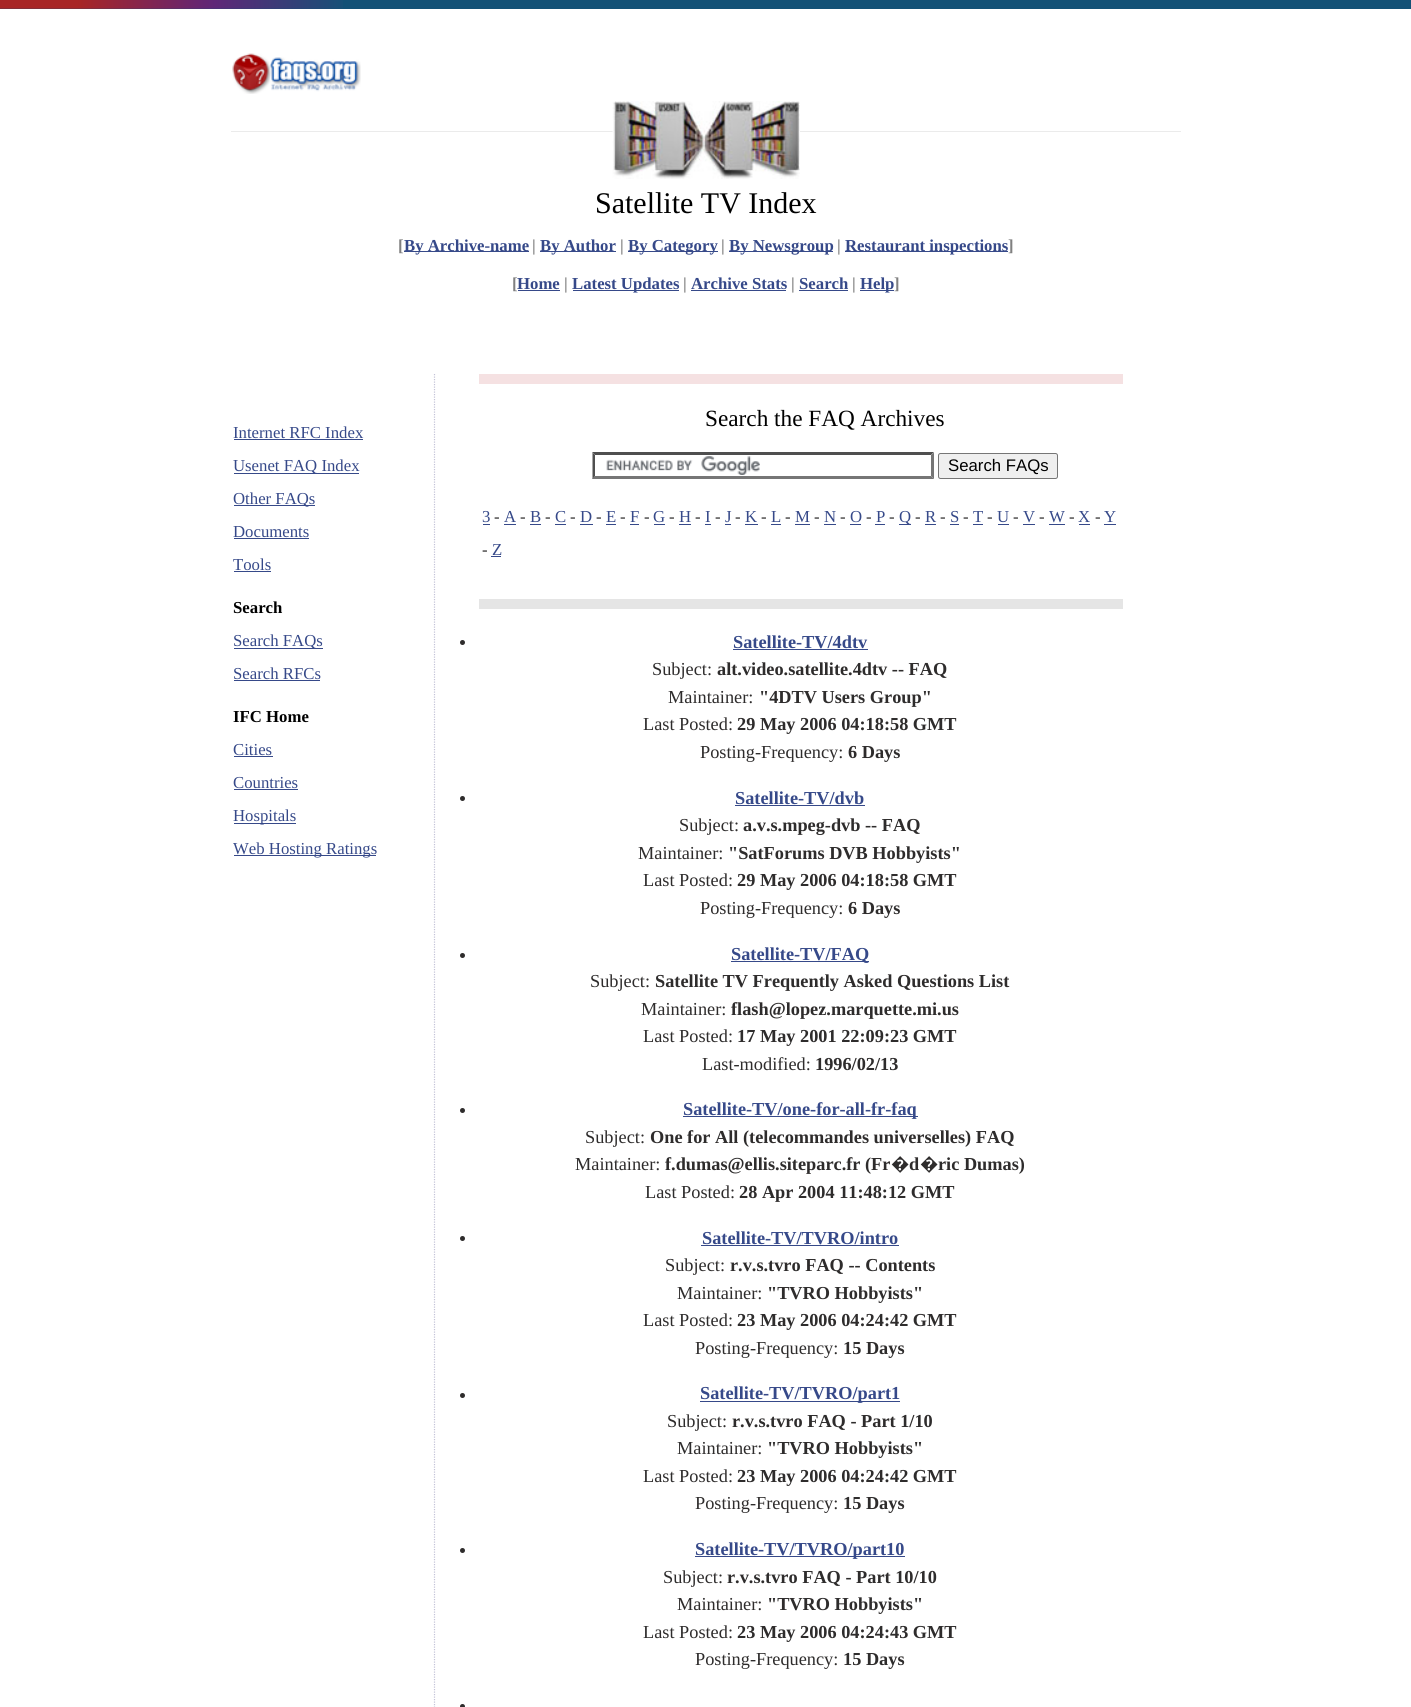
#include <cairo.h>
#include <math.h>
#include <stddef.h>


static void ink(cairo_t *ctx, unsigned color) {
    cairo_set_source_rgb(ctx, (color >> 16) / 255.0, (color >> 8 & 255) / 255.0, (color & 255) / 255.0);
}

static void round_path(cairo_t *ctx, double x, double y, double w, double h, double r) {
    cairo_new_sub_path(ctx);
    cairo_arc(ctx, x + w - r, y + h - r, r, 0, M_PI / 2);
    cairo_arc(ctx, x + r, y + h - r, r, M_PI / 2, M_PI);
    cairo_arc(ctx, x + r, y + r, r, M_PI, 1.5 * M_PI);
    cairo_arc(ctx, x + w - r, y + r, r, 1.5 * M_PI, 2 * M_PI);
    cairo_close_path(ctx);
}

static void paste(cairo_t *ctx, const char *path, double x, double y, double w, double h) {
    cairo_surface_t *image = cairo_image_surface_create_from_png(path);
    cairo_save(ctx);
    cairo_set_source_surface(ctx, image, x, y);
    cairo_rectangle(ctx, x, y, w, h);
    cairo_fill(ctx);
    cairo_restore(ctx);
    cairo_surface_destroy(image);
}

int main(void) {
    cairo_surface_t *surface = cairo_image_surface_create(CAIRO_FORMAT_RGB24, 1411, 1707);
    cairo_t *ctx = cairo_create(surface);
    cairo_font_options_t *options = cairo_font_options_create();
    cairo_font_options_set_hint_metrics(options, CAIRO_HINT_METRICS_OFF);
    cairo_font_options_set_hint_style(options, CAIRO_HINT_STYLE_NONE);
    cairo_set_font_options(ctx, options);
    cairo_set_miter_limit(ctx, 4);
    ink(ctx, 0xFFFFFF);
    cairo_paint(ctx);
    ink(ctx, 0x135176);
    cairo_rectangle(ctx, 0, 0, 1411, 9);
    cairo_fill(ctx);
    paste(ctx, "media/1.png", 0, 0, 343, 9);
    ink(ctx, 0xEBEBEB);
    cairo_rectangle(ctx, 231, 131, 950, 1);
    cairo_fill(ctx);
    paste(ctx, "media/2.png", 232, 53, 129, 41);
    paste(ctx, "media/3.png", 612, 101, 188, 78);
    cairo_select_font_face(ctx, "Liberation Serif", CAIRO_FONT_SLANT_NORMAL, CAIRO_FONT_WEIGHT_NORMAL);
    cairo_set_font_size(ctx, 30);
    ink(ctx, 0x000000);
    cairo_move_to(ctx, 595, 213);
    cairo_show_text(ctx, "Satellite TV Index");
    cairo_select_font_face(ctx, "Liberation Serif", CAIRO_FONT_SLANT_NORMAL, CAIRO_FONT_WEIGHT_BOLD);
    cairo_set_font_size(ctx, 16.75);
    ink(ctx, 0x808080);
    cairo_move_to(ctx, 398, 251);
    cairo_show_text(ctx, "[");
    ink(ctx, 0x364989);
    cairo_rectangle(ctx, 404, 251, 125, 1);
    cairo_fill(ctx);
    cairo_move_to(ctx, 404, 251);
    cairo_show_text(ctx, "By Archive-name");
    ink(ctx, 0x808080);
    cairo_move_to(ctx, 532, 251);
    cairo_show_text(ctx, "|");
    ink(ctx, 0x364989);
    cairo_rectangle(ctx, 540, 251, 76, 1);
    cairo_fill(ctx);
    cairo_move_to(ctx, 540, 251);
    cairo_show_text(ctx, "By Author");
    ink(ctx, 0x808080);
    cairo_move_to(ctx, 620, 251);
    cairo_show_text(ctx, "|");
    ink(ctx, 0x364989);
    cairo_rectangle(ctx, 628, 251, 90, 1);
    cairo_fill(ctx);
    cairo_move_to(ctx, 628, 251);
    cairo_show_text(ctx, "By Category");
    ink(ctx, 0x808080);
    cairo_move_to(ctx, 721, 251);
    cairo_show_text(ctx, "|");
    ink(ctx, 0x364989);
    cairo_rectangle(ctx, 729, 251, 104, 1);
    cairo_fill(ctx);
    cairo_move_to(ctx, 729, 251);
    cairo_show_text(ctx, "By Newsgroup");
    ink(ctx, 0x808080);
    cairo_move_to(ctx, 837, 251);
    cairo_show_text(ctx, "|");
    ink(ctx, 0x364989);
    cairo_rectangle(ctx, 845, 251, 163, 1);
    cairo_fill(ctx);
    cairo_move_to(ctx, 845, 251);
    cairo_show_text(ctx, "Restaurant inspections");
    ink(ctx, 0x808080);
    cairo_move_to(ctx, 1008, 251);
    cairo_show_text(ctx, "]");
    cairo_move_to(ctx, 512, 289);
    cairo_show_text(ctx, "[");
    ink(ctx, 0x364989);
    cairo_rectangle(ctx, 518, 290, 42, 1);
    cairo_fill(ctx);
    cairo_move_to(ctx, 517, 289);
    cairo_show_text(ctx, "Home");
    ink(ctx, 0x808080);
    cairo_move_to(ctx, 564, 289);
    cairo_show_text(ctx, "|");
    ink(ctx, 0x364989);
    cairo_rectangle(ctx, 573, 290, 106, 1);
    cairo_fill(ctx);
    cairo_move_to(ctx, 572, 289);
    cairo_show_text(ctx, "Latest Updates");
    ink(ctx, 0x808080);
    cairo_move_to(ctx, 683, 289);
    cairo_show_text(ctx, "|");
    ink(ctx, 0x364989);
    cairo_move_to(ctx, 691, 289);
    cairo_show_text(ctx, "Archive Stats");
    cairo_rectangle(ctx, 691, 290, 95, 1);
    cairo_fill(ctx);
    ink(ctx, 0x808080);
    cairo_move_to(ctx, 791, 289);
    cairo_show_text(ctx, "|");
    ink(ctx, 0x364989);
    cairo_move_to(ctx, 799, 289);
    cairo_show_text(ctx, "Search");
    cairo_rectangle(ctx, 799, 290, 49, 1);
    cairo_fill(ctx);
    ink(ctx, 0x808080);
    cairo_move_to(ctx, 852, 289);
    cairo_show_text(ctx, "|");
    ink(ctx, 0x364989);
    cairo_rectangle(ctx, 860, 290, 34, 1);
    cairo_fill(ctx);
    cairo_move_to(ctx, 860, 289);
    cairo_show_text(ctx, "Help");
    ink(ctx, 0x808080);
    cairo_move_to(ctx, 894, 289);
    cairo_show_text(ctx, "]");
    cairo_select_font_face(ctx, "Liberation Serif", CAIRO_FONT_SLANT_NORMAL, CAIRO_FONT_WEIGHT_NORMAL);
    ink(ctx, 0x364989);
    cairo_move_to(ctx, 233, 438);
    cairo_show_text(ctx, "Internet RFC Index");
    cairo_rectangle(ctx, 234, 439, 129, 1);
    cairo_fill(ctx);
    cairo_rectangle(ctx, 234, 473, 125, 1);
    cairo_fill(ctx);
    cairo_move_to(ctx, 233, 471);
    cairo_show_text(ctx, "Usenet FAQ Index");
    cairo_rectangle(ctx, 234, 505, 81, 1);
    cairo_fill(ctx);
    cairo_move_to(ctx, 233, 504);
    cairo_show_text(ctx, "Other FAQs");
    cairo_move_to(ctx, 233, 537);
    cairo_show_text(ctx, "Documents");
    cairo_rectangle(ctx, 234, 538, 75, 1);
    cairo_fill(ctx);
    cairo_move_to(ctx, 233, 570);
    cairo_show_text(ctx, "Tools");
    cairo_rectangle(ctx, 234, 571, 37, 1);
    cairo_fill(ctx);
    cairo_select_font_face(ctx, "Liberation Serif", CAIRO_FONT_SLANT_NORMAL, CAIRO_FONT_WEIGHT_BOLD);
    ink(ctx, 0x000000);
    cairo_move_to(ctx, 233, 613);
    cairo_show_text(ctx, "Search");
    ink(ctx, 0x364989);
    cairo_rectangle(ctx, 234, 648, 89, 1);
    cairo_fill(ctx);
    cairo_select_font_face(ctx, "Liberation Serif", CAIRO_FONT_SLANT_NORMAL, CAIRO_FONT_WEIGHT_NORMAL);
    cairo_move_to(ctx, 233, 646);
    cairo_show_text(ctx, "Search FAQs");
    cairo_move_to(ctx, 233, 679);
    cairo_show_text(ctx, "Search RFCs");
    cairo_rectangle(ctx, 234, 680, 86, 1);
    cairo_fill(ctx);
    cairo_select_font_face(ctx, "Liberation Serif", CAIRO_FONT_SLANT_NORMAL, CAIRO_FONT_WEIGHT_BOLD);
    ink(ctx, 0x000000);
    cairo_move_to(ctx, 233, 722);
    cairo_show_text(ctx, "IFC Home");
    cairo_select_font_face(ctx, "Liberation Serif", CAIRO_FONT_SLANT_NORMAL, CAIRO_FONT_WEIGHT_NORMAL);
    ink(ctx, 0x364989);
    cairo_move_to(ctx, 233, 755);
    cairo_show_text(ctx, "Cities");
    cairo_rectangle(ctx, 234, 756, 39, 1);
    cairo_fill(ctx);
    cairo_move_to(ctx, 233, 788);
    cairo_show_text(ctx, "Countries");
    cairo_rectangle(ctx, 234, 789, 64, 1);
    cairo_fill(ctx);
    cairo_rectangle(ctx, 234, 823, 62, 1);
    cairo_fill(ctx);
    cairo_move_to(ctx, 233, 821);
    cairo_show_text(ctx, "Hospitals");
    cairo_rectangle(ctx, 234, 855, 142, 1);
    cairo_fill(ctx);
    cairo_move_to(ctx, 233, 854);
    cairo_show_text(ctx, "Web Hosting Ratings");
    cairo_new_path(ctx);
    cairo_move_to(ctx, 434.5, 374);
    cairo_line_to(ctx, 434.5, 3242.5);
    ink(ctx, 0xC4C3D7);
    cairo_set_line_width(ctx, 1.2);
    cairo_set_dash(ctx, (double[]){1.25, 1.25}, 2, 0);
    cairo_stroke(ctx);
    ink(ctx, 0xF5E1E2);
    cairo_rectangle(ctx, 479, 374, 644, 10);
    cairo_fill(ctx);
    cairo_set_font_size(ctx, 23.25);
    ink(ctx, 0x000000);
    cairo_move_to(ctx, 705, 426);
    cairo_show_text(ctx, "Search the FAQ Archives");
    paste(ctx, "media/4.png", 606, 456, 154, 19);
    ink(ctx, 0x4F4F4F);
    cairo_new_path(ctx);
    cairo_move_to(ctx, 592, 452);
    cairo_line_to(ctx, 934, 452);
    cairo_line_to(ctx, 931, 455);
    cairo_line_to(ctx, 595, 455);
    cairo_close_path(ctx);
    cairo_fill(ctx);
    ink(ctx, 0x767676);
    cairo_new_path(ctx);
    cairo_move_to(ctx, 934, 452.5);
    cairo_line_to(ctx, 934, 479);
    cairo_line_to(ctx, 931, 476);
    cairo_line_to(ctx, 931, 455);
    cairo_close_path(ctx);
    cairo_fill(ctx);
    cairo_new_path(ctx);
    cairo_move_to(ctx, 934, 479);
    cairo_line_to(ctx, 592, 479);
    cairo_line_to(ctx, 595, 476);
    cairo_line_to(ctx, 931, 476);
    cairo_close_path(ctx);
    cairo_fill(ctx);
    ink(ctx, 0x4F4F4F);
    cairo_new_path(ctx);
    cairo_move_to(ctx, 592.5, 479);
    cairo_line_to(ctx, 592.5, 452.5);
    cairo_line_to(ctx, 595, 455);
    cairo_line_to(ctx, 595, 476);
    cairo_close_path(ctx);
    cairo_fill(ctx);
    ink(ctx, 0xEFEFEF);
    round_path(ctx, 938.5, 453.5, 119, 25, 2);
    cairo_fill_preserve(ctx);
    ink(ctx, 0x767676);
    cairo_set_line_width(ctx, 1);
    cairo_set_dash(ctx, NULL, 0, 0);
    cairo_stroke(ctx);
    cairo_select_font_face(ctx, "Liberation Sans", CAIRO_FONT_SLANT_NORMAL, CAIRO_FONT_WEIGHT_NORMAL);
    cairo_set_font_size(ctx, 16.75);
    ink(ctx, 0x000000);
    cairo_move_to(ctx, 948, 471);
    cairo_show_text(ctx, "Search FAQs");
    cairo_select_font_face(ctx, "Liberation Serif", CAIRO_FONT_SLANT_NORMAL, CAIRO_FONT_WEIGHT_NORMAL);
    ink(ctx, 0x364989);
    cairo_move_to(ctx, 482, 522);
    cairo_show_text(ctx, "3");
    cairo_rectangle(ctx, 483, 524, 7, 1);
    cairo_fill(ctx);
    ink(ctx, 0x2E2C2C);
    cairo_move_to(ctx, 494, 522);
    cairo_show_text(ctx, "-");
    ink(ctx, 0x364989);
    cairo_move_to(ctx, 504, 522);
    cairo_show_text(ctx, "A");
    cairo_rectangle(ctx, 504, 524, 12, 1);
    cairo_fill(ctx);
    ink(ctx, 0x2E2C2C);
    cairo_move_to(ctx, 520, 522);
    cairo_show_text(ctx, "-");
    ink(ctx, 0x364989);
    cairo_move_to(ctx, 530, 522);
    cairo_show_text(ctx, "B");
    cairo_rectangle(ctx, 530, 524, 11, 1);
    cairo_fill(ctx);
    ink(ctx, 0x2E2C2C);
    cairo_move_to(ctx, 545, 522);
    cairo_show_text(ctx, "-");
    ink(ctx, 0x364989);
    cairo_move_to(ctx, 555, 522);
    cairo_show_text(ctx, "C");
    cairo_rectangle(ctx, 555, 524, 11, 1);
    cairo_fill(ctx);
    ink(ctx, 0x2E2C2C);
    cairo_move_to(ctx, 570, 522);
    cairo_show_text(ctx, "-");
    ink(ctx, 0x364989);
    cairo_move_to(ctx, 580, 522);
    cairo_show_text(ctx, "D");
    cairo_rectangle(ctx, 580, 524, 13, 1);
    cairo_fill(ctx);
    ink(ctx, 0x2E2C2C);
    cairo_move_to(ctx, 596, 522);
    cairo_show_text(ctx, "-");
    ink(ctx, 0x364989);
    cairo_move_to(ctx, 606, 522);
    cairo_show_text(ctx, "E");
    cairo_rectangle(ctx, 606, 524, 10, 1);
    cairo_fill(ctx);
    ink(ctx, 0x2E2C2C);
    cairo_move_to(ctx, 620, 522);
    cairo_show_text(ctx, "-");
    ink(ctx, 0x364989);
    cairo_move_to(ctx, 630, 522);
    cairo_show_text(ctx, "F");
    cairo_rectangle(ctx, 630, 524, 9, 1);
    cairo_fill(ctx);
    ink(ctx, 0x2E2C2C);
    cairo_move_to(ctx, 644, 522);
    cairo_show_text(ctx, "-");
    ink(ctx, 0x364989);
    cairo_move_to(ctx, 653, 522);
    cairo_show_text(ctx, "G");
    cairo_rectangle(ctx, 654, 524, 11, 1);
    cairo_fill(ctx);
    ink(ctx, 0x2E2C2C);
    cairo_move_to(ctx, 669, 522);
    cairo_show_text(ctx, "-");
    ink(ctx, 0x364989);
    cairo_move_to(ctx, 679, 522);
    cairo_show_text(ctx, "H");
    cairo_rectangle(ctx, 679, 524, 12, 1);
    cairo_fill(ctx);
    ink(ctx, 0x2E2C2C);
    cairo_move_to(ctx, 695, 522);
    cairo_show_text(ctx, "-");
    ink(ctx, 0x364989);
    cairo_move_to(ctx, 705, 522);
    cairo_show_text(ctx, "I");
    cairo_rectangle(ctx, 705, 524, 6, 1);
    cairo_fill(ctx);
    ink(ctx, 0x2E2C2C);
    cairo_move_to(ctx, 715, 522);
    cairo_show_text(ctx, "-");
    ink(ctx, 0x364989);
    cairo_move_to(ctx, 725, 522);
    cairo_show_text(ctx, "J");
    cairo_rectangle(ctx, 725, 524, 6, 1);
    cairo_fill(ctx);
    ink(ctx, 0x2E2C2C);
    cairo_move_to(ctx, 735, 522);
    cairo_show_text(ctx, "-");
    ink(ctx, 0x364989);
    cairo_move_to(ctx, 745, 522);
    cairo_show_text(ctx, "K");
    cairo_rectangle(ctx, 745, 524, 13, 1);
    cairo_fill(ctx);
    ink(ctx, 0x2E2C2C);
    cairo_move_to(ctx, 761, 522);
    cairo_show_text(ctx, "-");
    ink(ctx, 0x364989);
    cairo_move_to(ctx, 771, 522);
    cairo_show_text(ctx, "L");
    cairo_rectangle(ctx, 771, 524, 10, 1);
    cairo_fill(ctx);
    ink(ctx, 0x2E2C2C);
    cairo_move_to(ctx, 785, 522);
    cairo_show_text(ctx, "-");
    ink(ctx, 0x364989);
    cairo_move_to(ctx, 795, 522);
    cairo_show_text(ctx, "M");
    cairo_rectangle(ctx, 795, 524, 15, 1);
    cairo_fill(ctx);
    ink(ctx, 0x2E2C2C);
    cairo_move_to(ctx, 814, 522);
    cairo_show_text(ctx, "-");
    ink(ctx, 0x364989);
    cairo_move_to(ctx, 824, 522);
    cairo_show_text(ctx, "N");
    cairo_rectangle(ctx, 824, 524, 12, 1);
    cairo_fill(ctx);
    ink(ctx, 0x2E2C2C);
    cairo_move_to(ctx, 840, 522);
    cairo_show_text(ctx, "-");
    ink(ctx, 0x364989);
    cairo_move_to(ctx, 850, 522);
    cairo_show_text(ctx, "O");
    cairo_rectangle(ctx, 850, 524, 11, 1);
    cairo_fill(ctx);
    ink(ctx, 0x2E2C2C);
    cairo_move_to(ctx, 866, 522);
    cairo_show_text(ctx, "-");
    ink(ctx, 0x364989);
    cairo_move_to(ctx, 876, 522);
    cairo_show_text(ctx, "P");
    cairo_rectangle(ctx, 875, 524, 10, 1);
    cairo_fill(ctx);
    ink(ctx, 0x2E2C2C);
    cairo_move_to(ctx, 889, 522);
    cairo_show_text(ctx, "-");
    ink(ctx, 0x364989);
    cairo_rectangle(ctx, 899, 524, 12, 1);
    cairo_fill(ctx);
    cairo_move_to(ctx, 899, 522);
    cairo_show_text(ctx, "Q");
    ink(ctx, 0x2E2C2C);
    cairo_move_to(ctx, 915, 522);
    cairo_show_text(ctx, "-");
    ink(ctx, 0x364989);
    cairo_move_to(ctx, 925, 522);
    cairo_show_text(ctx, "R");
    cairo_rectangle(ctx, 925, 524, 11, 1);
    cairo_fill(ctx);
    ink(ctx, 0x2E2C2C);
    cairo_move_to(ctx, 940, 522);
    cairo_show_text(ctx, "-");
    ink(ctx, 0x364989);
    cairo_move_to(ctx, 950, 522);
    cairo_show_text(ctx, "S");
    cairo_rectangle(ctx, 950, 524, 9, 1);
    cairo_fill(ctx);
    ink(ctx, 0x2E2C2C);
    cairo_move_to(ctx, 963, 522);
    cairo_show_text(ctx, "-");
    ink(ctx, 0x364989);
    cairo_move_to(ctx, 973, 522);
    cairo_show_text(ctx, "T");
    cairo_rectangle(ctx, 973, 524, 10, 1);
    cairo_fill(ctx);
    ink(ctx, 0x2E2C2C);
    cairo_move_to(ctx, 987, 522);
    cairo_show_text(ctx, "-");
    ink(ctx, 0x364989);
    cairo_move_to(ctx, 997, 522);
    cairo_show_text(ctx, "U");
    cairo_rectangle(ctx, 998, 524, 11, 1);
    cairo_fill(ctx);
    ink(ctx, 0x2E2C2C);
    cairo_move_to(ctx, 1013, 522);
    cairo_show_text(ctx, "-");
    ink(ctx, 0x364989);
    cairo_move_to(ctx, 1023, 522);
    cairo_show_text(ctx, "V");
    cairo_rectangle(ctx, 1023, 524, 12, 1);
    cairo_fill(ctx);
    ink(ctx, 0x2E2C2C);
    cairo_move_to(ctx, 1039, 522);
    cairo_show_text(ctx, "-");
    ink(ctx, 0x364989);
    cairo_move_to(ctx, 1049, 522);
    cairo_show_text(ctx, "W");
    cairo_rectangle(ctx, 1049, 524, 16, 1);
    cairo_fill(ctx);
    ink(ctx, 0x2E2C2C);
    cairo_move_to(ctx, 1069, 522);
    cairo_show_text(ctx, "-");
    ink(ctx, 0x364989);
    cairo_move_to(ctx, 1078, 522);
    cairo_show_text(ctx, "X");
    cairo_rectangle(ctx, 1079, 524, 11, 1);
    cairo_fill(ctx);
    ink(ctx, 0x2E2C2C);
    cairo_move_to(ctx, 1095, 522);
    cairo_show_text(ctx, "-");
    ink(ctx, 0x364989);
    cairo_move_to(ctx, 1104, 522);
    cairo_show_text(ctx, "Y");
    cairo_rectangle(ctx, 1104, 524, 12, 1);
    cairo_fill(ctx);
    ink(ctx, 0x2E2C2C);
    cairo_move_to(ctx, 482, 555);
    cairo_show_text(ctx, "-");
    ink(ctx, 0x364989);
    cairo_move_to(ctx, 492, 555);
    cairo_show_text(ctx, "Z");
    cairo_rectangle(ctx, 491, 556, 10, 1);
    cairo_fill(ctx);
    ink(ctx, 0xE5E5E5);
    cairo_rectangle(ctx, 479, 599, 644, 10);
    cairo_fill(ctx);
    ink(ctx, 0x2E2C2C);
    cairo_arc(ctx, 462.5, 642.5, 2.5, 0, 2 * M_PI);
    cairo_fill(ctx);
    cairo_select_font_face(ctx, "Liberation Serif", CAIRO_FONT_SLANT_NORMAL, CAIRO_FONT_WEIGHT_BOLD);
    cairo_set_font_size(ctx, 18.3);
    ink(ctx, 0x364989);
    cairo_move_to(ctx, 733, 648);
    cairo_show_text(ctx, "Satellite-TV/4dtv");
    cairo_rectangle(ctx, 733, 649, 135, 1);
    cairo_fill(ctx);
    cairo_select_font_face(ctx, "Liberation Serif", CAIRO_FONT_SLANT_NORMAL, CAIRO_FONT_WEIGHT_NORMAL);
    ink(ctx, 0x2E2C2C);
    cairo_move_to(ctx, 652, 675);
    cairo_show_text(ctx, "Subject:");
    cairo_select_font_face(ctx, "Liberation Serif", CAIRO_FONT_SLANT_NORMAL, CAIRO_FONT_WEIGHT_BOLD);
    cairo_move_to(ctx, 717, 675);
    cairo_show_text(ctx, "alt.video.satellite.4dtv -- FAQ");
    cairo_select_font_face(ctx, "Liberation Serif", CAIRO_FONT_SLANT_NORMAL, CAIRO_FONT_WEIGHT_NORMAL);
    cairo_move_to(ctx, 668, 703);
    cairo_show_text(ctx, "Maintainer:");
    cairo_select_font_face(ctx, "Liberation Serif", CAIRO_FONT_SLANT_NORMAL, CAIRO_FONT_WEIGHT_BOLD);
    cairo_move_to(ctx, 759, 703);
    cairo_show_text(ctx, "\"4DTV Users Group\"");
    cairo_select_font_face(ctx, "Liberation Serif", CAIRO_FONT_SLANT_NORMAL, CAIRO_FONT_WEIGHT_NORMAL);
    cairo_move_to(ctx, 643, 730);
    cairo_show_text(ctx, "Last Posted:");
    cairo_select_font_face(ctx, "Liberation Serif", CAIRO_FONT_SLANT_NORMAL, CAIRO_FONT_WEIGHT_BOLD);
    cairo_move_to(ctx, 737, 730);
    cairo_show_text(ctx, "29 May 2006 04:18:58 GMT");
    cairo_select_font_face(ctx, "Liberation Serif", CAIRO_FONT_SLANT_NORMAL, CAIRO_FONT_WEIGHT_NORMAL);
    cairo_move_to(ctx, 700, 758);
    cairo_show_text(ctx, "Posting-Frequency:");
    cairo_select_font_face(ctx, "Liberation Serif", CAIRO_FONT_SLANT_NORMAL, CAIRO_FONT_WEIGHT_BOLD);
    cairo_move_to(ctx, 848, 758);
    cairo_show_text(ctx, "6 Days");
    cairo_new_path(ctx);
    cairo_arc(ctx, 462.5, 798.5, 2.5, 0, 2 * M_PI);
    cairo_fill(ctx);
    ink(ctx, 0x364989);
    cairo_move_to(ctx, 735, 804);
    cairo_show_text(ctx, "Satellite-TV/dvb");
    cairo_rectangle(ctx, 735, 805, 130, 1);
    cairo_fill(ctx);
    cairo_select_font_face(ctx, "Liberation Serif", CAIRO_FONT_SLANT_NORMAL, CAIRO_FONT_WEIGHT_NORMAL);
    ink(ctx, 0x2E2C2C);
    cairo_move_to(ctx, 679, 831);
    cairo_show_text(ctx, "Subject:");
    cairo_select_font_face(ctx, "Liberation Serif", CAIRO_FONT_SLANT_NORMAL, CAIRO_FONT_WEIGHT_BOLD);
    cairo_move_to(ctx, 743, 831);
    cairo_show_text(ctx, "a.v.s.mpeg-dvb -- FAQ");
    cairo_select_font_face(ctx, "Liberation Serif", CAIRO_FONT_SLANT_NORMAL, CAIRO_FONT_WEIGHT_NORMAL);
    cairo_move_to(ctx, 638, 859);
    cairo_show_text(ctx, "Maintainer:");
    cairo_select_font_face(ctx, "Liberation Serif", CAIRO_FONT_SLANT_NORMAL, CAIRO_FONT_WEIGHT_BOLD);
    cairo_move_to(ctx, 728, 859);
    cairo_show_text(ctx, "\"SatForums DVB Hobbyists\"");
    cairo_select_font_face(ctx, "Liberation Serif", CAIRO_FONT_SLANT_NORMAL, CAIRO_FONT_WEIGHT_NORMAL);
    cairo_move_to(ctx, 643, 886);
    cairo_show_text(ctx, "Last Posted:");
    cairo_select_font_face(ctx, "Liberation Serif", CAIRO_FONT_SLANT_NORMAL, CAIRO_FONT_WEIGHT_BOLD);
    cairo_move_to(ctx, 737, 886);
    cairo_show_text(ctx, "29 May 2006 04:18:58 GMT");
    cairo_select_font_face(ctx, "Liberation Serif", CAIRO_FONT_SLANT_NORMAL, CAIRO_FONT_WEIGHT_NORMAL);
    cairo_move_to(ctx, 700, 914);
    cairo_show_text(ctx, "Posting-Frequency:");
    cairo_select_font_face(ctx, "Liberation Serif", CAIRO_FONT_SLANT_NORMAL, CAIRO_FONT_WEIGHT_BOLD);
    cairo_move_to(ctx, 848, 914);
    cairo_show_text(ctx, "6 Days");
    cairo_new_path(ctx);
    cairo_arc(ctx, 462.5, 955.5, 2.5, 0, 2 * M_PI);
    cairo_fill(ctx);
    ink(ctx, 0x364989);
    cairo_rectangle(ctx, 731, 961, 138, 1);
    cairo_fill(ctx);
    cairo_move_to(ctx, 731, 960);
    cairo_show_text(ctx, "Satellite-TV/FAQ");
    cairo_select_font_face(ctx, "Liberation Serif", CAIRO_FONT_SLANT_NORMAL, CAIRO_FONT_WEIGHT_NORMAL);
    ink(ctx, 0x2E2C2C);
    cairo_move_to(ctx, 590, 987);
    cairo_show_text(ctx, "Subject:");
    cairo_select_font_face(ctx, "Liberation Serif", CAIRO_FONT_SLANT_NORMAL, CAIRO_FONT_WEIGHT_BOLD);
    cairo_move_to(ctx, 655, 987);
    cairo_show_text(ctx, "Satellite TV Frequently Asked Questions List");
    cairo_select_font_face(ctx, "Liberation Serif", CAIRO_FONT_SLANT_NORMAL, CAIRO_FONT_WEIGHT_NORMAL);
    cairo_move_to(ctx, 641, 1015);
    cairo_show_text(ctx, "Maintainer:");
    cairo_select_font_face(ctx, "Liberation Serif", CAIRO_FONT_SLANT_NORMAL, CAIRO_FONT_WEIGHT_BOLD);
    cairo_move_to(ctx, 731, 1015);
    cairo_show_text(ctx, "flash@lopez.marquette.mi.us");
    cairo_select_font_face(ctx, "Liberation Serif", CAIRO_FONT_SLANT_NORMAL, CAIRO_FONT_WEIGHT_NORMAL);
    cairo_move_to(ctx, 643, 1042);
    cairo_show_text(ctx, "Last Posted:");
    cairo_select_font_face(ctx, "Liberation Serif", CAIRO_FONT_SLANT_NORMAL, CAIRO_FONT_WEIGHT_BOLD);
    cairo_move_to(ctx, 737, 1042);
    cairo_show_text(ctx, "17 May 2001 22:09:23 GMT");
    cairo_select_font_face(ctx, "Liberation Serif", CAIRO_FONT_SLANT_NORMAL, CAIRO_FONT_WEIGHT_NORMAL);
    cairo_move_to(ctx, 702, 1070);
    cairo_show_text(ctx, "Last-modified:");
    cairo_select_font_face(ctx, "Liberation Serif", CAIRO_FONT_SLANT_NORMAL, CAIRO_FONT_WEIGHT_BOLD);
    cairo_move_to(ctx, 815, 1070);
    cairo_show_text(ctx, "1996/02/13");
    cairo_new_path(ctx);
    cairo_arc(ctx, 462.5, 1110.5, 2.5, 0, 2 * M_PI);
    cairo_fill(ctx);
    ink(ctx, 0x364989);
    cairo_rectangle(ctx, 683, 1116, 235, 1);
    cairo_fill(ctx);
    cairo_move_to(ctx, 683, 1115);
    cairo_show_text(ctx, "Satellite-TV/one-for-all-fr-faq");
    cairo_select_font_face(ctx, "Liberation Serif", CAIRO_FONT_SLANT_NORMAL, CAIRO_FONT_WEIGHT_NORMAL);
    ink(ctx, 0x2E2C2C);
    cairo_move_to(ctx, 585, 1143);
    cairo_show_text(ctx, "Subject:");
    cairo_select_font_face(ctx, "Liberation Serif", CAIRO_FONT_SLANT_NORMAL, CAIRO_FONT_WEIGHT_BOLD);
    cairo_move_to(ctx, 650, 1143);
    cairo_show_text(ctx, "One for All (telecommandes universelles) FAQ");
    cairo_select_font_face(ctx, "Liberation Serif", CAIRO_FONT_SLANT_NORMAL, CAIRO_FONT_WEIGHT_NORMAL);
    cairo_move_to(ctx, 575, 1170);
    cairo_show_text(ctx, "Maintainer:");
    cairo_select_font_face(ctx, "Liberation Serif", CAIRO_FONT_SLANT_NORMAL, CAIRO_FONT_WEIGHT_BOLD);
    cairo_move_to(ctx, 665, 1170);
    cairo_show_text(ctx, "f.dumas@ellis.siteparc.fr (Fr");
    cairo_select_font_face(ctx, "Noto Sans", CAIRO_FONT_SLANT_NORMAL, CAIRO_FONT_WEIGHT_BOLD);
    cairo_move_to(ctx, 891, 1170);
    cairo_show_text(ctx, "�");
    cairo_select_font_face(ctx, "Liberation Serif", CAIRO_FONT_SLANT_NORMAL, CAIRO_FONT_WEIGHT_BOLD);
    cairo_move_to(ctx, 909, 1170);
    cairo_show_text(ctx, "d");
    cairo_select_font_face(ctx, "Noto Sans", CAIRO_FONT_SLANT_NORMAL, CAIRO_FONT_WEIGHT_BOLD);
    cairo_move_to(ctx, 920, 1170);
    cairo_show_text(ctx, "�");
    cairo_select_font_face(ctx, "Liberation Serif", CAIRO_FONT_SLANT_NORMAL, CAIRO_FONT_WEIGHT_BOLD);
    cairo_move_to(ctx, 938, 1170);
    cairo_show_text(ctx, "ric Dumas)");
    cairo_select_font_face(ctx, "Liberation Serif", CAIRO_FONT_SLANT_NORMAL, CAIRO_FONT_WEIGHT_NORMAL);
    cairo_move_to(ctx, 645, 1198);
    cairo_show_text(ctx, "Last Posted:");
    cairo_select_font_face(ctx, "Liberation Serif", CAIRO_FONT_SLANT_NORMAL, CAIRO_FONT_WEIGHT_BOLD);
    cairo_move_to(ctx, 739, 1198);
    cairo_show_text(ctx, "28 Apr 2004 11:48:12 GMT");
    cairo_new_path(ctx);
    cairo_arc(ctx, 462.5, 1238.5, 2.5, 0, 2 * M_PI);
    cairo_fill(ctx);
    ink(ctx, 0x364989);
    cairo_move_to(ctx, 702, 1244);
    cairo_show_text(ctx, "Satellite-TV/TVRO/intro");
    cairo_rectangle(ctx, 701, 1245, 198, 1);
    cairo_fill(ctx);
    cairo_select_font_face(ctx, "Liberation Serif", CAIRO_FONT_SLANT_NORMAL, CAIRO_FONT_WEIGHT_NORMAL);
    ink(ctx, 0x2E2C2C);
    cairo_move_to(ctx, 665, 1271);
    cairo_show_text(ctx, "Subject:");
    cairo_select_font_face(ctx, "Liberation Serif", CAIRO_FONT_SLANT_NORMAL, CAIRO_FONT_WEIGHT_BOLD);
    cairo_move_to(ctx, 730, 1271);
    cairo_show_text(ctx, "r.v.s.tvro FAQ -- Contents");
    cairo_select_font_face(ctx, "Liberation Serif", CAIRO_FONT_SLANT_NORMAL, CAIRO_FONT_WEIGHT_NORMAL);
    cairo_move_to(ctx, 677, 1299);
    cairo_show_text(ctx, "Maintainer:");
    cairo_select_font_face(ctx, "Liberation Serif", CAIRO_FONT_SLANT_NORMAL, CAIRO_FONT_WEIGHT_BOLD);
    cairo_move_to(ctx, 767, 1299);
    cairo_show_text(ctx, "\"TVRO Hobbyists\"");
    cairo_select_font_face(ctx, "Liberation Serif", CAIRO_FONT_SLANT_NORMAL, CAIRO_FONT_WEIGHT_NORMAL);
    cairo_move_to(ctx, 643, 1326);
    cairo_show_text(ctx, "Last Posted:");
    cairo_select_font_face(ctx, "Liberation Serif", CAIRO_FONT_SLANT_NORMAL, CAIRO_FONT_WEIGHT_BOLD);
    cairo_move_to(ctx, 737, 1326);
    cairo_show_text(ctx, "23 May 2006 04:24:42 GMT");
    cairo_select_font_face(ctx, "Liberation Serif", CAIRO_FONT_SLANT_NORMAL, CAIRO_FONT_WEIGHT_NORMAL);
    cairo_move_to(ctx, 695, 1354);
    cairo_show_text(ctx, "Posting-Frequency:");
    cairo_select_font_face(ctx, "Liberation Serif", CAIRO_FONT_SLANT_NORMAL, CAIRO_FONT_WEIGHT_BOLD);
    cairo_move_to(ctx, 843, 1354);
    cairo_show_text(ctx, "15 Days");
    cairo_new_path(ctx);
    cairo_arc(ctx, 462.5, 1395.5, 2.5, 0, 2 * M_PI);
    cairo_fill(ctx);
    ink(ctx, 0x364989);
    cairo_rectangle(ctx, 700, 1401, 200, 1);
    cairo_fill(ctx);
    cairo_move_to(ctx, 700, 1399);
    cairo_show_text(ctx, "Satellite-TV/TVRO/part1");
    cairo_select_font_face(ctx, "Liberation Serif", CAIRO_FONT_SLANT_NORMAL, CAIRO_FONT_WEIGHT_NORMAL);
    ink(ctx, 0x2E2C2C);
    cairo_move_to(ctx, 667, 1427);
    cairo_show_text(ctx, "Subject:");
    cairo_select_font_face(ctx, "Liberation Serif", CAIRO_FONT_SLANT_NORMAL, CAIRO_FONT_WEIGHT_BOLD);
    cairo_move_to(ctx, 732, 1427);
    cairo_show_text(ctx, "r.v.s.tvro FAQ - Part 1/10");
    cairo_select_font_face(ctx, "Liberation Serif", CAIRO_FONT_SLANT_NORMAL, CAIRO_FONT_WEIGHT_NORMAL);
    cairo_move_to(ctx, 677, 1454);
    cairo_show_text(ctx, "Maintainer:");
    cairo_select_font_face(ctx, "Liberation Serif", CAIRO_FONT_SLANT_NORMAL, CAIRO_FONT_WEIGHT_BOLD);
    cairo_move_to(ctx, 767, 1454);
    cairo_show_text(ctx, "\"TVRO Hobbyists\"");
    cairo_select_font_face(ctx, "Liberation Serif", CAIRO_FONT_SLANT_NORMAL, CAIRO_FONT_WEIGHT_NORMAL);
    cairo_move_to(ctx, 643, 1482);
    cairo_show_text(ctx, "Last Posted:");
    cairo_select_font_face(ctx, "Liberation Serif", CAIRO_FONT_SLANT_NORMAL, CAIRO_FONT_WEIGHT_BOLD);
    cairo_move_to(ctx, 737, 1482);
    cairo_show_text(ctx, "23 May 2006 04:24:42 GMT");
    cairo_select_font_face(ctx, "Liberation Serif", CAIRO_FONT_SLANT_NORMAL, CAIRO_FONT_WEIGHT_NORMAL);
    cairo_move_to(ctx, 695, 1509);
    cairo_show_text(ctx, "Posting-Frequency:");
    cairo_select_font_face(ctx, "Liberation Serif", CAIRO_FONT_SLANT_NORMAL, CAIRO_FONT_WEIGHT_BOLD);
    cairo_move_to(ctx, 843, 1509);
    cairo_show_text(ctx, "15 Days");
    cairo_new_path(ctx);
    cairo_arc(ctx, 462.5, 1550.5, 2.5, 0, 2 * M_PI);
    cairo_fill(ctx);
    ink(ctx, 0x364989);
    cairo_rectangle(ctx, 695, 1556, 210, 1);
    cairo_fill(ctx);
    cairo_move_to(ctx, 695, 1555);
    cairo_show_text(ctx, "Satellite-TV/TVRO/part10");
    cairo_select_font_face(ctx, "Liberation Serif", CAIRO_FONT_SLANT_NORMAL, CAIRO_FONT_WEIGHT_NORMAL);
    ink(ctx, 0x2E2C2C);
    cairo_move_to(ctx, 663, 1583);
    cairo_show_text(ctx, "Subject:");
    cairo_select_font_face(ctx, "Liberation Serif", CAIRO_FONT_SLANT_NORMAL, CAIRO_FONT_WEIGHT_BOLD);
    cairo_move_to(ctx, 727, 1583);
    cairo_show_text(ctx, "r.v.s.tvro FAQ - Part 10/10");
    cairo_select_font_face(ctx, "Liberation Serif", CAIRO_FONT_SLANT_NORMAL, CAIRO_FONT_WEIGHT_NORMAL);
    cairo_move_to(ctx, 677, 1610);
    cairo_show_text(ctx, "Maintainer:");
    cairo_select_font_face(ctx, "Liberation Serif", CAIRO_FONT_SLANT_NORMAL, CAIRO_FONT_WEIGHT_BOLD);
    cairo_move_to(ctx, 767, 1610);
    cairo_show_text(ctx, "\"TVRO Hobbyists\"");
    cairo_select_font_face(ctx, "Liberation Serif", CAIRO_FONT_SLANT_NORMAL, CAIRO_FONT_WEIGHT_NORMAL);
    cairo_move_to(ctx, 643, 1638);
    cairo_show_text(ctx, "Last Posted:");
    cairo_select_font_face(ctx, "Liberation Serif", CAIRO_FONT_SLANT_NORMAL, CAIRO_FONT_WEIGHT_BOLD);
    cairo_move_to(ctx, 737, 1638);
    cairo_show_text(ctx, "23 May 2006 04:24:43 GMT");
    cairo_select_font_face(ctx, "Liberation Serif", CAIRO_FONT_SLANT_NORMAL, CAIRO_FONT_WEIGHT_NORMAL);
    cairo_move_to(ctx, 695, 1665);
    cairo_show_text(ctx, "Posting-Frequency:");
    cairo_select_font_face(ctx, "Liberation Serif", CAIRO_FONT_SLANT_NORMAL, CAIRO_FONT_WEIGHT_BOLD);
    cairo_move_to(ctx, 843, 1665);
    cairo_show_text(ctx, "15 Days");
    cairo_new_path(ctx);
    cairo_arc(ctx, 462.5, 1706.5, 2.5, 0, 2 * M_PI);
    cairo_fill(ctx);
    cairo_surface_write_to_png(surface, "image.png");
    cairo_font_options_destroy(options);
    cairo_destroy(ctx);
    cairo_surface_destroy(surface);
    return 0;
}
